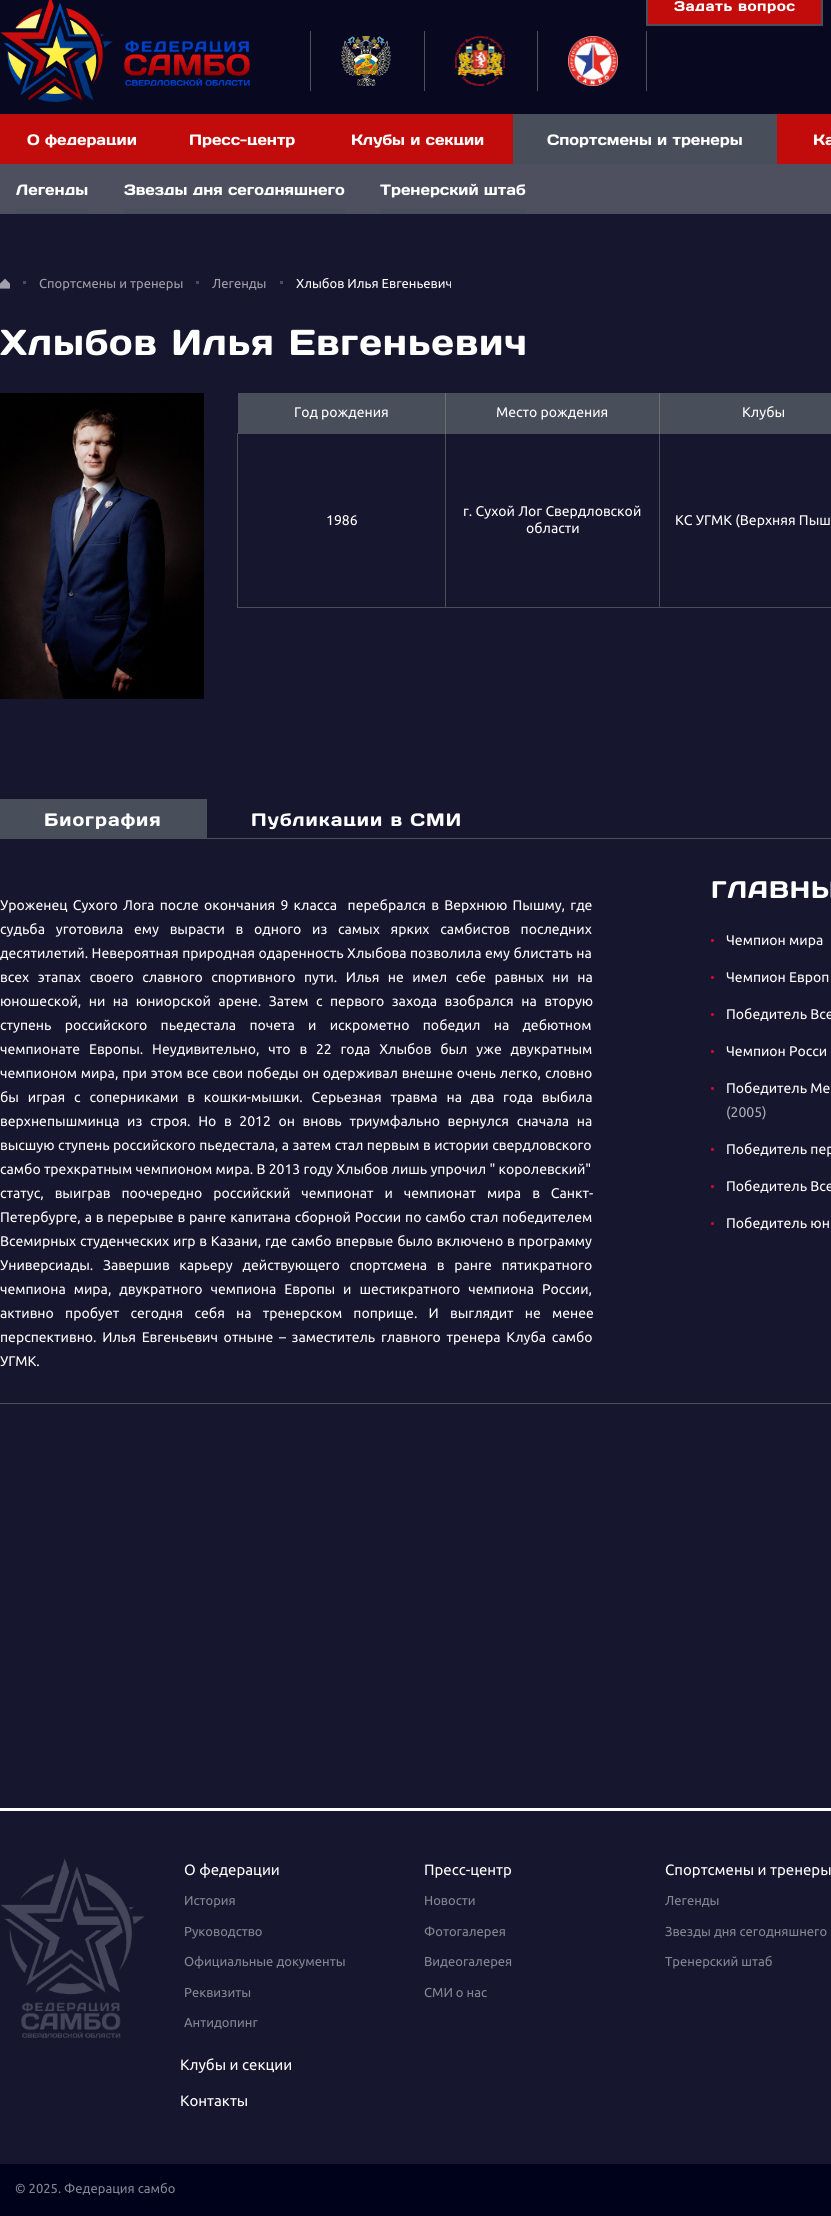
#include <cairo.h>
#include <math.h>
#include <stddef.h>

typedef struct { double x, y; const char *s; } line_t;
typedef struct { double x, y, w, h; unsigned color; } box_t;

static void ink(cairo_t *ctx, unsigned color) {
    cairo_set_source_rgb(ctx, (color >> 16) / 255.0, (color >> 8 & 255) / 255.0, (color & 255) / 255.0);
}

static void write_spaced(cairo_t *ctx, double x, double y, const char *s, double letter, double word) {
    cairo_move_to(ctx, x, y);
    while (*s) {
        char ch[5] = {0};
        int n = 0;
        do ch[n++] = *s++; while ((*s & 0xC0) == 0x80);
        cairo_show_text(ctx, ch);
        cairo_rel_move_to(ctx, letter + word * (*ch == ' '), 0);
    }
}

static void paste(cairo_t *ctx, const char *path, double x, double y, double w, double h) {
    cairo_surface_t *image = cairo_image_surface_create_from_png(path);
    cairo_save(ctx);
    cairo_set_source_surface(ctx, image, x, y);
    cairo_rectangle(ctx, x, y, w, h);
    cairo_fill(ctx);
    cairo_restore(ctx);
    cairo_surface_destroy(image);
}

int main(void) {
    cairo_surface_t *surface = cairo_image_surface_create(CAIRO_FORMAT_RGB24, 831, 2216);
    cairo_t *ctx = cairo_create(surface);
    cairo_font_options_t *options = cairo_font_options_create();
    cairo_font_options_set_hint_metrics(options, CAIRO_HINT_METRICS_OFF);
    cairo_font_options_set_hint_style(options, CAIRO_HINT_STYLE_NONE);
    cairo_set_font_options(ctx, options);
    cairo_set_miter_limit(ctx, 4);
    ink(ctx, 0x16172F);
    cairo_paint(ctx);
    ink(ctx, 0x080821);
    cairo_rectangle(ctx, 0, 0, 831, 114);
    cairo_fill(ctx);
    paste(ctx, "media/1.png", 0, 0, 250, 102);
    ink(ctx, 0xC20C0C);
    cairo_rectangle(ctx, 647, -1, 175, 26);
    cairo_fill_preserve(ctx);
    ink(ctx, 0x484E5A);
    cairo_stroke(ctx);
    cairo_select_font_face(ctx, "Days", CAIRO_FONT_SLANT_NORMAL, CAIRO_FONT_WEIGHT_NORMAL);
    cairo_set_font_size(ctx, 14);
    ink(ctx, 0xFFFFFF);
    write_spaced(ctx, 674, 11, "Задать вопрос", 0.5, 0);
    ink(ctx, 0x4F505F);
    cairo_rectangle(ctx, 310, 31, 1, 60);
    cairo_fill(ctx);
    paste(ctx, "media/2.png", 341, 36, 50, 50);
    cairo_rectangle(ctx, 424, 31, 1, 60);
    cairo_fill(ctx);
    paste(ctx, "media/3.png", 455, 36, 50, 50);
    cairo_rectangle(ctx, 646, 31, 1, 60);
    cairo_fill(ctx);
    cairo_rectangle(ctx, 537, 31, 1, 60);
    cairo_fill(ctx);
    paste(ctx, "media/4.png", 568, 36, 50, 50);
    ink(ctx, 0xC20C0C);
    cairo_rectangle(ctx, 0, 114, 831, 50);
    cairo_fill(ctx);
    ink(ctx, 0x484E5A);
    cairo_rectangle(ctx, 513, 114, 264, 50);
    cairo_fill(ctx);
    cairo_set_font_size(ctx, 15);
    ink(ctx, 0xFFFFFF);
    cairo_move_to(ctx, 547, 145);
    cairo_show_text(ctx, "Спортсмены и тренеры");
    ink(ctx, 0x4F505F);
    cairo_rectangle(ctx, 0, 164, 831, 50);
    cairo_fill(ctx);
    ink(ctx, 0x484E5A);
    cairo_rectangle(ctx, 16, 209, 72, 5);
    cairo_fill(ctx);
    ink(ctx, 0xFFFFFF);
    cairo_move_to(ctx, 16, 195);
    cairo_show_text(ctx, "Легенды");
    ink(ctx, 0x484E5A);
    cairo_rectangle(ctx, 124, 209, 221, 5);
    cairo_fill(ctx);
    ink(ctx, 0xFFFFFF);
    cairo_move_to(ctx, 124, 195);
    cairo_show_text(ctx, "Звезды дня сегодняшнего");
    ink(ctx, 0x484E5A);
    cairo_rectangle(ctx, 380, 209, 146, 5);
    cairo_fill(ctx);
    ink(ctx, 0xFFFFFF);
    {
        static const line_t items[] = {
            {380, 195, "Тренерский штаб"},
            {27, 145, "О федерации"},
            {189, 145, "Пресс-центр"},
            {351, 145, "Клубы и секции"},
            {813, 145, "Ка"},
        };
        for (size_t i = 0; i < sizeof items / sizeof *items; i++) {
            cairo_move_to(ctx, items[i].x, items[i].y);
            cairo_show_text(ctx, items[i].s);
        }
    }
    paste(ctx, "media/5.png", 0, 278, 10, 11);
    ink(ctx, 0x484E5A);
    cairo_rectangle(ctx, 23, 281, 3, 3);
    cairo_fill(ctx);
    cairo_select_font_face(ctx, "Ubuntu", CAIRO_FONT_SLANT_NORMAL, CAIRO_FONT_WEIGHT_NORMAL);
    cairo_set_font_size(ctx, 13);
    ink(ctx, 0xA0A0AA);
    cairo_move_to(ctx, 39, 288);
    cairo_show_text(ctx, "Спортсмены и тренеры");
    ink(ctx, 0x484E5A);
    cairo_rectangle(ctx, 196, 281, 3, 3);
    cairo_fill(ctx);
    ink(ctx, 0xA0A0AA);
    cairo_move_to(ctx, 212, 288);
    cairo_show_text(ctx, "Легенды");
    ink(ctx, 0x484E5A);
    cairo_rectangle(ctx, 280, 281, 3, 3);
    cairo_fill(ctx);
    ink(ctx, 0xFFFFFF);
    cairo_move_to(ctx, 296, 288);
    cairo_show_text(ctx, "Хлыбов Илья Евгеньевич");
    cairo_select_font_face(ctx, "Days", CAIRO_FONT_SLANT_NORMAL, CAIRO_FONT_WEIGHT_NORMAL);
    cairo_set_font_size(ctx, 36);
    write_spaced(ctx, 0, 355, "Хлыбов Илья Евгеньевич", 1, 0);
    paste(ctx, "media/6.png", 0, 393, 204, 306);
    {
        static const box_t items[] = {
            {238, 393, 207, 40, 0x484E5A},
            {659, 433, 172, 1, 0x484E5A},
            {659, 607, 172, 1, 0x484E5A},
            {659, 433, 1, 175, 0x484E5A},
            {445, 433, 215, 1, 0x484E5A},
            {445, 607, 215, 1, 0x484E5A},
            {445, 433, 1, 175, 0x484E5A},
            {237, 433, 209, 1, 0x484E5A},
            {445, 393, 1, 41, 0x6E6E6E},
        };
        for (size_t i = 0; i < sizeof items / sizeof *items; i++) {
            ink(ctx, items[i].color);
            cairo_rectangle(ctx, items[i].x, items[i].y, items[i].w, items[i].h);
            cairo_fill(ctx);
        }
    }
    cairo_select_font_face(ctx, "Ubuntu", CAIRO_FONT_SLANT_NORMAL, CAIRO_FONT_WEIGHT_NORMAL);
    cairo_set_font_size(ctx, 14);
    ink(ctx, 0xFFFFFF);
    cairo_move_to(ctx, 294, 417);
    cairo_show_text(ctx, "Год рождения");
    ink(ctx, 0x484E5A);
    cairo_rectangle(ctx, 446, 393, 213, 40);
    cairo_fill(ctx);
    ink(ctx, 0x6E6E6E);
    cairo_rectangle(ctx, 659, 393, 1, 41);
    cairo_fill(ctx);
    ink(ctx, 0xFFFFFF);
    cairo_move_to(ctx, 496, 417);
    cairo_show_text(ctx, "Место рождения");
    ink(ctx, 0x484E5A);
    cairo_rectangle(ctx, 660, 393, 171, 40);
    cairo_fill(ctx);
    ink(ctx, 0xFFFFFF);
    cairo_move_to(ctx, 742, 417);
    cairo_show_text(ctx, "Клубы");
    ink(ctx, 0x484E5A);
    cairo_rectangle(ctx, 237, 607, 209, 1);
    cairo_fill(ctx);
    cairo_rectangle(ctx, 237, 433, 1, 175);
    cairo_fill(ctx);
    ink(ctx, 0xFFFFFF);
    {
        static const line_t items[] = {
            {326, 525, "1986"},
            {463, 516, "г. Сухой Лог Свердловской"},
            {526, 533, "области"},
            {675, 525, "КС УГМК (Верхняя Пыш"},
        };
        for (size_t i = 0; i < sizeof items / sizeof *items; i++) {
            cairo_move_to(ctx, items[i].x, items[i].y);
            cairo_show_text(ctx, items[i].s);
        }
    }
    ink(ctx, 0x484E5A);
    cairo_rectangle(ctx, 0, 838, 831, 1);
    cairo_fill(ctx);
    cairo_rectangle(ctx, 0, 799, 207, 39);
    cairo_fill(ctx);
    cairo_select_font_face(ctx, "Days", CAIRO_FONT_SLANT_NORMAL, CAIRO_FONT_WEIGHT_NORMAL);
    cairo_set_font_size(ctx, 18);
    ink(ctx, 0xFFFFFF);
    write_spaced(ctx, 44, 826, "Биография", 1, 0);
    write_spaced(ctx, 251, 826, "Публикации в СМИ", 1, 0);
    ink(ctx, 0x484E5A);
    cairo_rectangle(ctx, 0, 1403, 831, 1);
    cairo_fill(ctx);
    cairo_select_font_face(ctx, "Ubuntu", CAIRO_FONT_SLANT_NORMAL, CAIRO_FONT_WEIGHT_NORMAL);
    cairo_set_font_size(ctx, 14);
    ink(ctx, 0xFFFFFF);
    write_spaced(ctx, 0, 910, "Уроженец Сухого Лога после окончания 9 класса  перебрался в Верхнюю Пышму, где", 0, 2);
    write_spaced(ctx, 0, 934, "судьба уготовила ему вырасти в одного из самых ярких самбистов последних", 0, 7.5);
    write_spaced(ctx, 0, 958, "десятилетий. Невероятная природная одаренность Хлыбова позволила ему блистать на", 0, 0.25);
    write_spaced(ctx, 0, 982, "всех этапах своего славного спортивного пути. Илья не имел себе равных ни на", 0, 5.25);
    write_spaced(ctx, 0, 1006, "юношеской, ни на юниорской арене. Затем с первого захода взобрался на вторую", 0, 4.25);
    write_spaced(ctx, 0, 1030, "ступень российского пьедестала почета и искрометно победил на дебютном", 0, 10);
    write_spaced(ctx, 0, 1054, "чемпионате Европы. Неудивительно, что в 22 года Хлыбов был уже двукратным", 0, 5.6);
    write_spaced(ctx, 0, 1078, "чемпионом мира, при этом все свои победы он одерживал внешне очень легко, словно", 0, 0.6);
    write_spaced(ctx, 0, 1102, "бы играя с соперниками в кошки-мышки. Серьезная травма на два года выбила", 0, 5.6);
    write_spaced(ctx, 0, 1126, "верхнепышминца из строя. Но в 2012 он вновь триумфально вернулся сначала на", 0, 4.4);
    write_spaced(ctx, 0, 1150, "высшую ступень российского пьедестала, а затем стал первым в истории свердловского", 0, 0.25);
    cairo_move_to(ctx, 0, 1174);
    cairo_show_text(ctx, "самбо трехкратным чемпионом мира. В 2013 году Хлыбов лишь упрочил \" королевский\"");
    write_spaced(ctx, 0, 1198, "статус, выиграв поочередно российский чемпионат и чемпионат мира в Санкт-", 0, 7.75);
    write_spaced(ctx, 0, 1222, "Петербурге, а в перерыве в ранге капитана сборной России по самбо стал победителем", 0, 0.6);
    write_spaced(ctx, 0, 1246, "Всемирных студенческих игр в Казани, где самбо впервые было включено в программу", 0, 0.6);
    write_spaced(ctx, 0, 1270, "Универсиады. Завершив карьеру действующего спортсмена в ранге пятикратного", 0, 6.5);
    write_spaced(ctx, 0, 1294, "чемпиона мира, двукратного чемпиона Европы и шестикратного чемпиона России,", 0, 4.75);
    write_spaced(ctx, 0, 1318, "активно пробует сегодня себя на тренерском поприще. И выглядит не менее", 0, 8);
    write_spaced(ctx, 0, 1342, "перспективно. Илья Евгеньевич отныне – заместитель главного тренера Клуба самбо", 0, 2.5);
    cairo_move_to(ctx, 0, 1366);
    cairo_show_text(ctx, "УГМК.");
    cairo_select_font_face(ctx, "Days", CAIRO_FONT_SLANT_NORMAL, CAIRO_FONT_WEIGHT_NORMAL);
    cairo_set_font_size(ctx, 24);
    write_spaced(ctx, 711, 898, "ГЛАВНЫ", 1, 0);
    ink(ctx, 0xE4013A);
    cairo_new_path(ctx);
    cairo_arc(ctx, 712.5, 940.5, 1.5, 0, 2 * M_PI);
    cairo_fill(ctx);
    cairo_select_font_face(ctx, "Ubuntu", CAIRO_FONT_SLANT_NORMAL, CAIRO_FONT_WEIGHT_NORMAL);
    cairo_set_font_size(ctx, 14);
    ink(ctx, 0xFFFFFF);
    cairo_move_to(ctx, 726, 945);
    cairo_show_text(ctx, "Чемпион мира");
    ink(ctx, 0xE4013A);
    cairo_new_path(ctx);
    cairo_arc(ctx, 712.5, 977.5, 1.5, 0, 2 * M_PI);
    cairo_fill(ctx);
    ink(ctx, 0xFFFFFF);
    cairo_move_to(ctx, 726, 982);
    cairo_show_text(ctx, "Чемпион Европ");
    ink(ctx, 0xE4013A);
    cairo_new_path(ctx);
    cairo_arc(ctx, 712.5, 1014.5, 1.5, 0, 2 * M_PI);
    cairo_fill(ctx);
    ink(ctx, 0xFFFFFF);
    cairo_move_to(ctx, 726, 1019);
    cairo_show_text(ctx, "Победитель Все");
    ink(ctx, 0xE4013A);
    cairo_new_path(ctx);
    cairo_arc(ctx, 712.5, 1051.5, 1.5, 0, 2 * M_PI);
    cairo_fill(ctx);
    ink(ctx, 0xFFFFFF);
    cairo_move_to(ctx, 726, 1056);
    cairo_show_text(ctx, "Чемпион Росси");
    ink(ctx, 0xE4013A);
    cairo_new_path(ctx);
    cairo_arc(ctx, 712.5, 1088.5, 1.5, 0, 2 * M_PI);
    cairo_fill(ctx);
    ink(ctx, 0xFFFFFF);
    cairo_move_to(ctx, 726, 1093);
    cairo_show_text(ctx, "Победитель Ме");
    ink(ctx, 0xAAACB3);
    cairo_move_to(ctx, 726, 1117);
    cairo_show_text(ctx, "(2005)");
    ink(ctx, 0xE4013A);
    cairo_new_path(ctx);
    cairo_arc(ctx, 712.5, 1149.5, 1.5, 0, 2 * M_PI);
    cairo_fill(ctx);
    ink(ctx, 0xFFFFFF);
    cairo_move_to(ctx, 726, 1154);
    cairo_show_text(ctx, "Победитель пер");
    ink(ctx, 0xE4013A);
    cairo_new_path(ctx);
    cairo_arc(ctx, 712.5, 1186.5, 1.5, 0, 2 * M_PI);
    cairo_fill(ctx);
    ink(ctx, 0xFFFFFF);
    cairo_move_to(ctx, 726, 1191);
    cairo_show_text(ctx, "Победитель Все");
    ink(ctx, 0xE4013A);
    cairo_new_path(ctx);
    cairo_arc(ctx, 712.5, 1223.5, 1.5, 0, 2 * M_PI);
    cairo_fill(ctx);
    ink(ctx, 0xFFFFFF);
    cairo_move_to(ctx, 726, 1228);
    cairo_show_text(ctx, "Победитель юн");
    cairo_rectangle(ctx, 0, 1808, 831, 3);
    cairo_fill(ctx);
    paste(ctx, "media/7.png", 1, 1858, 144, 180);
    cairo_set_font_size(ctx, 15);
    cairo_move_to(ctx, 184, 1875);
    cairo_show_text(ctx, "О федерации");
    cairo_set_font_size(ctx, 13);
    ink(ctx, 0x828791);
    {
        static const line_t items[] = {
            {184, 1905, "История"},
            {184, 1936, "Руководство"},
            {184, 1966, "Официальные документы"},
            {184, 1997, "Реквизиты"},
            {184, 2027, "Антидопинг"},
        };
        for (size_t i = 0; i < sizeof items / sizeof *items; i++) {
            cairo_move_to(ctx, items[i].x, items[i].y);
            cairo_show_text(ctx, items[i].s);
        }
    }
    cairo_set_font_size(ctx, 15);
    ink(ctx, 0xFFFFFF);
    cairo_move_to(ctx, 424, 1875);
    cairo_show_text(ctx, "Пресс-центр");
    cairo_set_font_size(ctx, 13);
    ink(ctx, 0x828791);
    {
        static const line_t items[] = {
            {424, 1905, "Новости"},
            {424, 1936, "Фотогалерея"},
            {424, 1966, "Видеогалерея"},
            {424, 1997, "СМИ о нас"},
        };
        for (size_t i = 0; i < sizeof items / sizeof *items; i++) {
            cairo_move_to(ctx, items[i].x, items[i].y);
            cairo_show_text(ctx, items[i].s);
        }
    }
    cairo_set_font_size(ctx, 15);
    ink(ctx, 0xFFFFFF);
    cairo_move_to(ctx, 665, 1875);
    cairo_show_text(ctx, "Спортсмены и тренеры");
    cairo_set_font_size(ctx, 13);
    ink(ctx, 0x828791);
    {
        static const line_t items[] = {
            {665, 1905, "Легенды"},
            {665, 1936, "Звезды дня сегодняшнего"},
            {665, 1966, "Тренерский штаб"},
        };
        for (size_t i = 0; i < sizeof items / sizeof *items; i++) {
            cairo_move_to(ctx, items[i].x, items[i].y);
            cairo_show_text(ctx, items[i].s);
        }
    }
    cairo_set_font_size(ctx, 15);
    ink(ctx, 0xFFFFFF);
    cairo_move_to(ctx, 180, 2070);
    cairo_show_text(ctx, "Клубы и секции");
    cairo_move_to(ctx, 180, 2106);
    cairo_show_text(ctx, "Контакты");
    ink(ctx, 0x00021C);
    cairo_rectangle(ctx, 0, 2164, 831, 52);
    cairo_fill(ctx);
    cairo_set_font_size(ctx, 13);
    ink(ctx, 0x828791);
    cairo_move_to(ctx, 15, 2193);
    cairo_show_text(ctx, "© 2025. Федерация самбо");
    cairo_surface_write_to_png(surface, "image.png");
    cairo_font_options_destroy(options);
    cairo_destroy(ctx);
    cairo_surface_destroy(surface);
    return 0;
}
